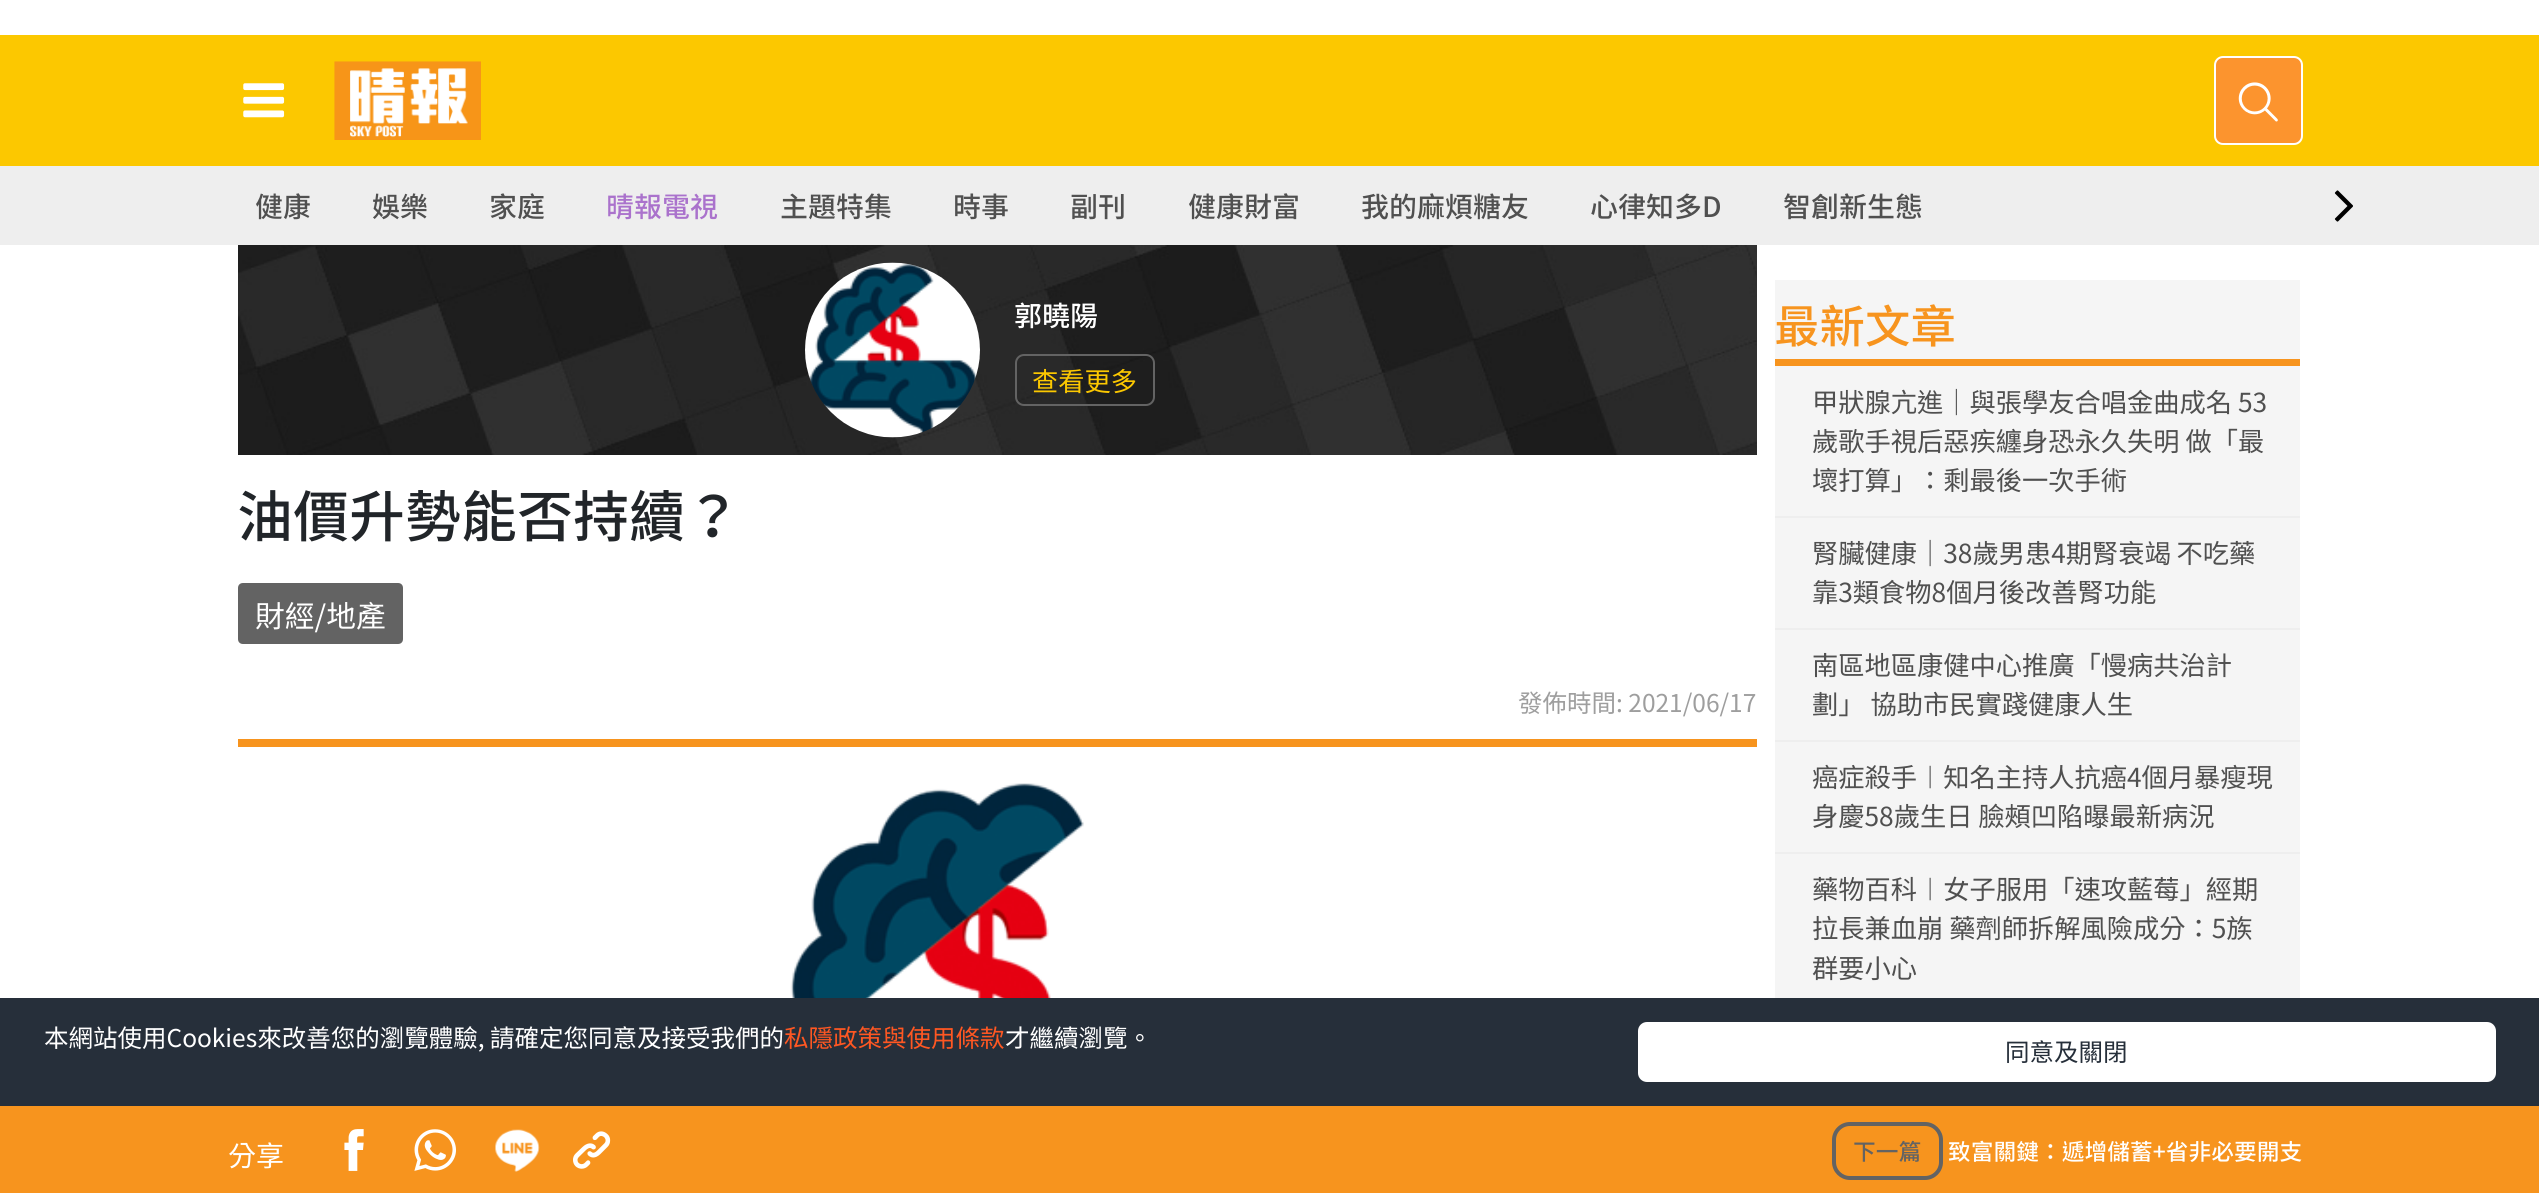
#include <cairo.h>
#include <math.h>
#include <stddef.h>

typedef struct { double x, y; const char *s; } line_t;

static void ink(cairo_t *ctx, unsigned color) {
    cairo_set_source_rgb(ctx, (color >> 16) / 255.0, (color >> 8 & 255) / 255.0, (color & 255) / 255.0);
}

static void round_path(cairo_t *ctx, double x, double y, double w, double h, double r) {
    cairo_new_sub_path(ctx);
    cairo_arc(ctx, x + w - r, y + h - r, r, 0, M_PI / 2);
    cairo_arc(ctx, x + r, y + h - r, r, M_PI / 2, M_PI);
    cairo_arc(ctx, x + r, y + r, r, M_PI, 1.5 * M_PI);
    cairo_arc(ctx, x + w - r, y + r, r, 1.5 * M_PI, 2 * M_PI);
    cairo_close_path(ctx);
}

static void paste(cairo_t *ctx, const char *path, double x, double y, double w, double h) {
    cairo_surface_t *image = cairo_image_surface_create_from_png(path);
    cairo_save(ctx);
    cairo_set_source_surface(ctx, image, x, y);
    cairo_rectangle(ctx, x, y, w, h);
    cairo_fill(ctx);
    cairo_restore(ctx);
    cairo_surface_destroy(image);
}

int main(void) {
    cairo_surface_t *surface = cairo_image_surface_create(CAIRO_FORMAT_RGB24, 2539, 1193);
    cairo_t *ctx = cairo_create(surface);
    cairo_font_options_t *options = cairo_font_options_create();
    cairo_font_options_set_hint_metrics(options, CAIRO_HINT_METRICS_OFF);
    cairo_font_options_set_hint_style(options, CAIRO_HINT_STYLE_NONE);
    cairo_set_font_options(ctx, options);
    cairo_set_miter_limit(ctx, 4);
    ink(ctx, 0xFFFFFF);
    cairo_paint(ctx);
    ink(ctx, 0xFCC800);
    cairo_rectangle(ctx, 0, 35, 2539, 131);
    cairo_fill(ctx);
    paste(ctx, "media/1.png", 243, 83, 42, 35);
    paste(ctx, "media/2.png", 334, 61, 147, 79);
    ink(ctx, 0xFC942E);
    round_path(ctx, 2215, 57, 87, 87, 8);
    cairo_fill_preserve(ctx);
    ink(ctx, 0xFFFFFF);
    cairo_stroke(ctx);
    paste(ctx, "media/3.png", 2238, 82, 40, 40);
    ink(ctx, 0xEEEEEE);
    cairo_rectangle(ctx, 0, 166, 2539, 79);
    cairo_fill(ctx);
    cairo_select_font_face(ctx, "Noto Sans TC Medium", CAIRO_FONT_SLANT_NORMAL, CAIRO_FONT_WEIGHT_NORMAL);
    cairo_set_font_size(ctx, 28);
    ink(ctx, 0x505050);
    {
        static const line_t items[] = {
            {255, 217, "健康"},
            {372, 217, "娛樂"},
            {489, 217, "家庭"},
        };
        for (size_t i = 0; i < sizeof items / sizeof *items; i++) {
            cairo_move_to(ctx, items[i].x, items[i].y);
            cairo_show_text(ctx, items[i].s);
        }
    }
    ink(ctx, 0xAA72CC);
    cairo_move_to(ctx, 606, 217);
    cairo_show_text(ctx, "晴報電視");
    ink(ctx, 0x505050);
    {
        static const line_t items[] = {
            {780, 217, "主題特集"},
            {953, 217, "時事"},
            {1070, 217, "副刊"},
            {1188, 217, "健康財富"},
            {1361, 217, "我的麻煩糖友"},
            {1590, 217, "心律知多D"},
            {1783, 217, "智創新生態"},
        };
        for (size_t i = 0; i < sizeof items / sizeof *items; i++) {
            cairo_move_to(ctx, items[i].x, items[i].y);
            cairo_show_text(ctx, items[i].s);
        }
    }
    paste(ctx, "media/4.png", 2334, 190, 19, 32);
    paste(ctx, "media/5.png", 238, 245, 1519, 210);
    paste(ctx, "media/6.png", 805, 262, 175, 176);
    ink(ctx, 0xFFFFFF);
    cairo_move_to(ctx, 1014, 326);
    cairo_show_text(ctx, "郭曉陽");
    round_path(ctx, 1016, 355, 138, 50, 8);
    ink(ctx, 0x636363);
    cairo_stroke(ctx);
    cairo_select_font_face(ctx, "Noto Sans TC Thin", CAIRO_FONT_SLANT_NORMAL, CAIRO_FONT_WEIGHT_NORMAL);
    cairo_set_font_size(ctx, 26.25);
    ink(ctx, 0xFCC800);
    cairo_move_to(ctx, 1032, 391);
    cairo_show_text(ctx, "查看更多");
    cairo_select_font_face(ctx, "Noto Sans TC Medium", CAIRO_FONT_SLANT_NORMAL, CAIRO_FONT_WEIGHT_NORMAL);
    cairo_set_font_size(ctx, 56);
    ink(ctx, 0x212529);
    cairo_move_to(ctx, 237, 537);
    cairo_show_text(ctx, "油價升勢能否持續？");
    ink(ctx, 0x636363);
    cairo_new_path(ctx);
    cairo_move_to(ctx, 243, 583);
    cairo_line_to(ctx, 256, 583);
    cairo_line_to(ctx, 256, 644);
    cairo_line_to(ctx, 243, 644);
    cairo_curve_to(ctx, 240, 644, 238, 642, 238, 639);
    cairo_line_to(ctx, 238, 588);
    cairo_curve_to(ctx, 238, 585, 240, 583, 243, 583);
    cairo_close_path(ctx);
    cairo_fill(ctx);
    cairo_new_path(ctx);
    cairo_move_to(ctx, 256, 583);
    cairo_line_to(ctx, 398, 583);
    cairo_curve_to(ctx, 401, 583, 403, 585, 403, 588);
    cairo_line_to(ctx, 403, 639);
    cairo_curve_to(ctx, 403, 642, 401, 644, 398, 644);
    cairo_line_to(ctx, 256, 644);
    cairo_close_path(ctx);
    cairo_fill(ctx);
    cairo_select_font_face(ctx, "Noto Sans TC Thin", CAIRO_FONT_SLANT_NORMAL, CAIRO_FONT_WEIGHT_NORMAL);
    cairo_set_font_size(ctx, 29.75);
    ink(ctx, 0xFFFFFF);
    cairo_move_to(ctx, 255, 627);
    cairo_show_text(ctx, "財經/地產");
    cairo_set_font_size(ctx, 24.5);
    ink(ctx, 0x9E9E9E);
    cairo_move_to(ctx, 1518, 712);
    cairo_show_text(ctx, "發佈時間: 2021/06/17");
    ink(ctx, 0xF7941E);
    cairo_rectangle(ctx, 238, 739, 1519, 8);
    cairo_fill(ctx);
    paste(ctx, "media/7.png", 774, 783, 422, 215);
    ink(ctx, 0xF5F5F5);
    cairo_rectangle(ctx, 1775, 280, 525, 718);
    cairo_fill(ctx);
    ink(ctx, 0xF7941E);
    cairo_rectangle(ctx, 1775, 359, 525, 7);
    cairo_fill(ctx);
    cairo_select_font_face(ctx, "Noto Sans TC Medium", CAIRO_FONT_SLANT_NORMAL, CAIRO_FONT_WEIGHT_NORMAL);
    cairo_set_font_size(ctx, 45.5);
    cairo_move_to(ctx, 1774, 343);
    cairo_show_text(ctx, "最新文章");
    ink(ctx, 0xEEEEEE);
    cairo_rectangle(ctx, 1775, 516, 525, 2);
    cairo_fill(ctx);
    cairo_select_font_face(ctx, "Noto Sans TC Thin", CAIRO_FONT_SLANT_NORMAL, CAIRO_FONT_WEIGHT_NORMAL);
    cairo_set_font_size(ctx, 26.25);
    ink(ctx, 0x505050);
    {
        static const line_t items[] = {
            {1812, 412, "甲狀腺亢進｜與張學友合唱金曲成名 53"},
            {1812, 451, "歲歌手視后惡疾纏身恐永久失明 做「最"},
            {1812, 490, "壞打算」：剩最後一次手術"},
        };
        for (size_t i = 0; i < sizeof items / sizeof *items; i++) {
            cairo_move_to(ctx, items[i].x, items[i].y);
            cairo_show_text(ctx, items[i].s);
        }
    }
    ink(ctx, 0xEEEEEE);
    cairo_rectangle(ctx, 1775, 628, 525, 2);
    cairo_fill(ctx);
    ink(ctx, 0x505050);
    cairo_move_to(ctx, 1812, 563);
    cairo_show_text(ctx, "腎臟健康｜38歲男患4期腎衰竭 不吃藥");
    cairo_move_to(ctx, 1812, 602);
    cairo_show_text(ctx, "靠3類食物8個月後改善腎功能");
    ink(ctx, 0xEEEEEE);
    cairo_rectangle(ctx, 1775, 740, 525, 2);
    cairo_fill(ctx);
    ink(ctx, 0x505050);
    cairo_move_to(ctx, 1812, 675);
    cairo_show_text(ctx, "南區地區康健中心推廣「慢病共治計");
    cairo_move_to(ctx, 1812, 714);
    cairo_show_text(ctx, "劃」 協助市民實踐健康人生");
    ink(ctx, 0xEEEEEE);
    cairo_rectangle(ctx, 1775, 852, 525, 2);
    cairo_fill(ctx);
    ink(ctx, 0x505050);
    {
        static const line_t items[] = {
            {1812, 787, "癌症殺手︱知名主持人抗癌4個月暴瘦現"},
            {1812, 826, "身慶58歲生日 臉頰凹陷曝最新病況"},
            {1812, 899, "藥物百科︱女子服用「速攻藍莓」經期"},
            {1812, 938, "拉長兼血崩 藥劑師拆解風險成分：5族"},
            {1812, 978, "群要小心"},
        };
        for (size_t i = 0; i < sizeof items / sizeof *items; i++) {
            cairo_move_to(ctx, items[i].x, items[i].y);
            cairo_show_text(ctx, items[i].s);
        }
    }
    ink(ctx, 0xF7941E);
    cairo_rectangle(ctx, 0, 1106, 2539, 87);
    cairo_fill(ctx);
    cairo_set_font_size(ctx, 28);
    ink(ctx, 0xFFFFFF);
    cairo_move_to(ctx, 228, 1166);
    cairo_show_text(ctx, "分享");
    paste(ctx, "media/8.png", 344, 1129, 20, 42);
    paste(ctx, "media/9.png", 414, 1129, 42, 42);
    paste(ctx, "media/10.png", 495, 1129, 45, 43);
    paste(ctx, "media/11.png", 573, 1131, 38, 38);
    round_path(ctx, 1834, 1124, 107, 54, 16);
    ink(ctx, 0x636363);
    cairo_set_line_width(ctx, 4);
    cairo_stroke(ctx);
    cairo_select_font_face(ctx, "Noto Sans TC Medium", CAIRO_FONT_SLANT_NORMAL, CAIRO_FONT_WEIGHT_NORMAL);
    cairo_set_font_size(ctx, 22.75);
    cairo_move_to(ctx, 1853, 1160);
    cairo_show_text(ctx, "下一篇");
    ink(ctx, 0xFFFFFF);
    cairo_move_to(ctx, 1948, 1160);
    cairo_show_text(ctx, "致富關鍵：遞增儲蓄+省非必要開支");
    ink(ctx, 0x262F3A);
    cairo_rectangle(ctx, 0, 998, 2539, 108);
    cairo_fill(ctx);
    cairo_select_font_face(ctx, "Noto Sans TC Thin", CAIRO_FONT_SLANT_NORMAL, CAIRO_FONT_WEIGHT_NORMAL);
    cairo_set_font_size(ctx, 24.5);
    ink(ctx, 0xFFFFFF);
    cairo_move_to(ctx, 44, 1047);
    cairo_show_text(ctx, "本網站使用Cookies來改善您的瀏覽體驗, 請確定您同意及接受我們的");
    ink(ctx, 0xFF5722);
    cairo_move_to(ctx, 784, 1047);
    cairo_show_text(ctx, "私隱政策與使用條款");
    ink(ctx, 0xFFFFFF);
    cairo_move_to(ctx, 1005, 1047);
    cairo_show_text(ctx, "才繼續瀏覽。");
    round_path(ctx, 1639, 1023, 856, 58, 8);
    cairo_fill_preserve(ctx);
    cairo_set_line_width(ctx, 2);
    cairo_stroke(ctx);
    ink(ctx, 0x262F3A);
    cairo_move_to(ctx, 2005, 1061);
    cairo_show_text(ctx, "同意及關閉");
    cairo_surface_write_to_png(surface, "image.png");
    cairo_font_options_destroy(options);
    cairo_destroy(ctx);
    cairo_surface_destroy(surface);
    return 0;
}
